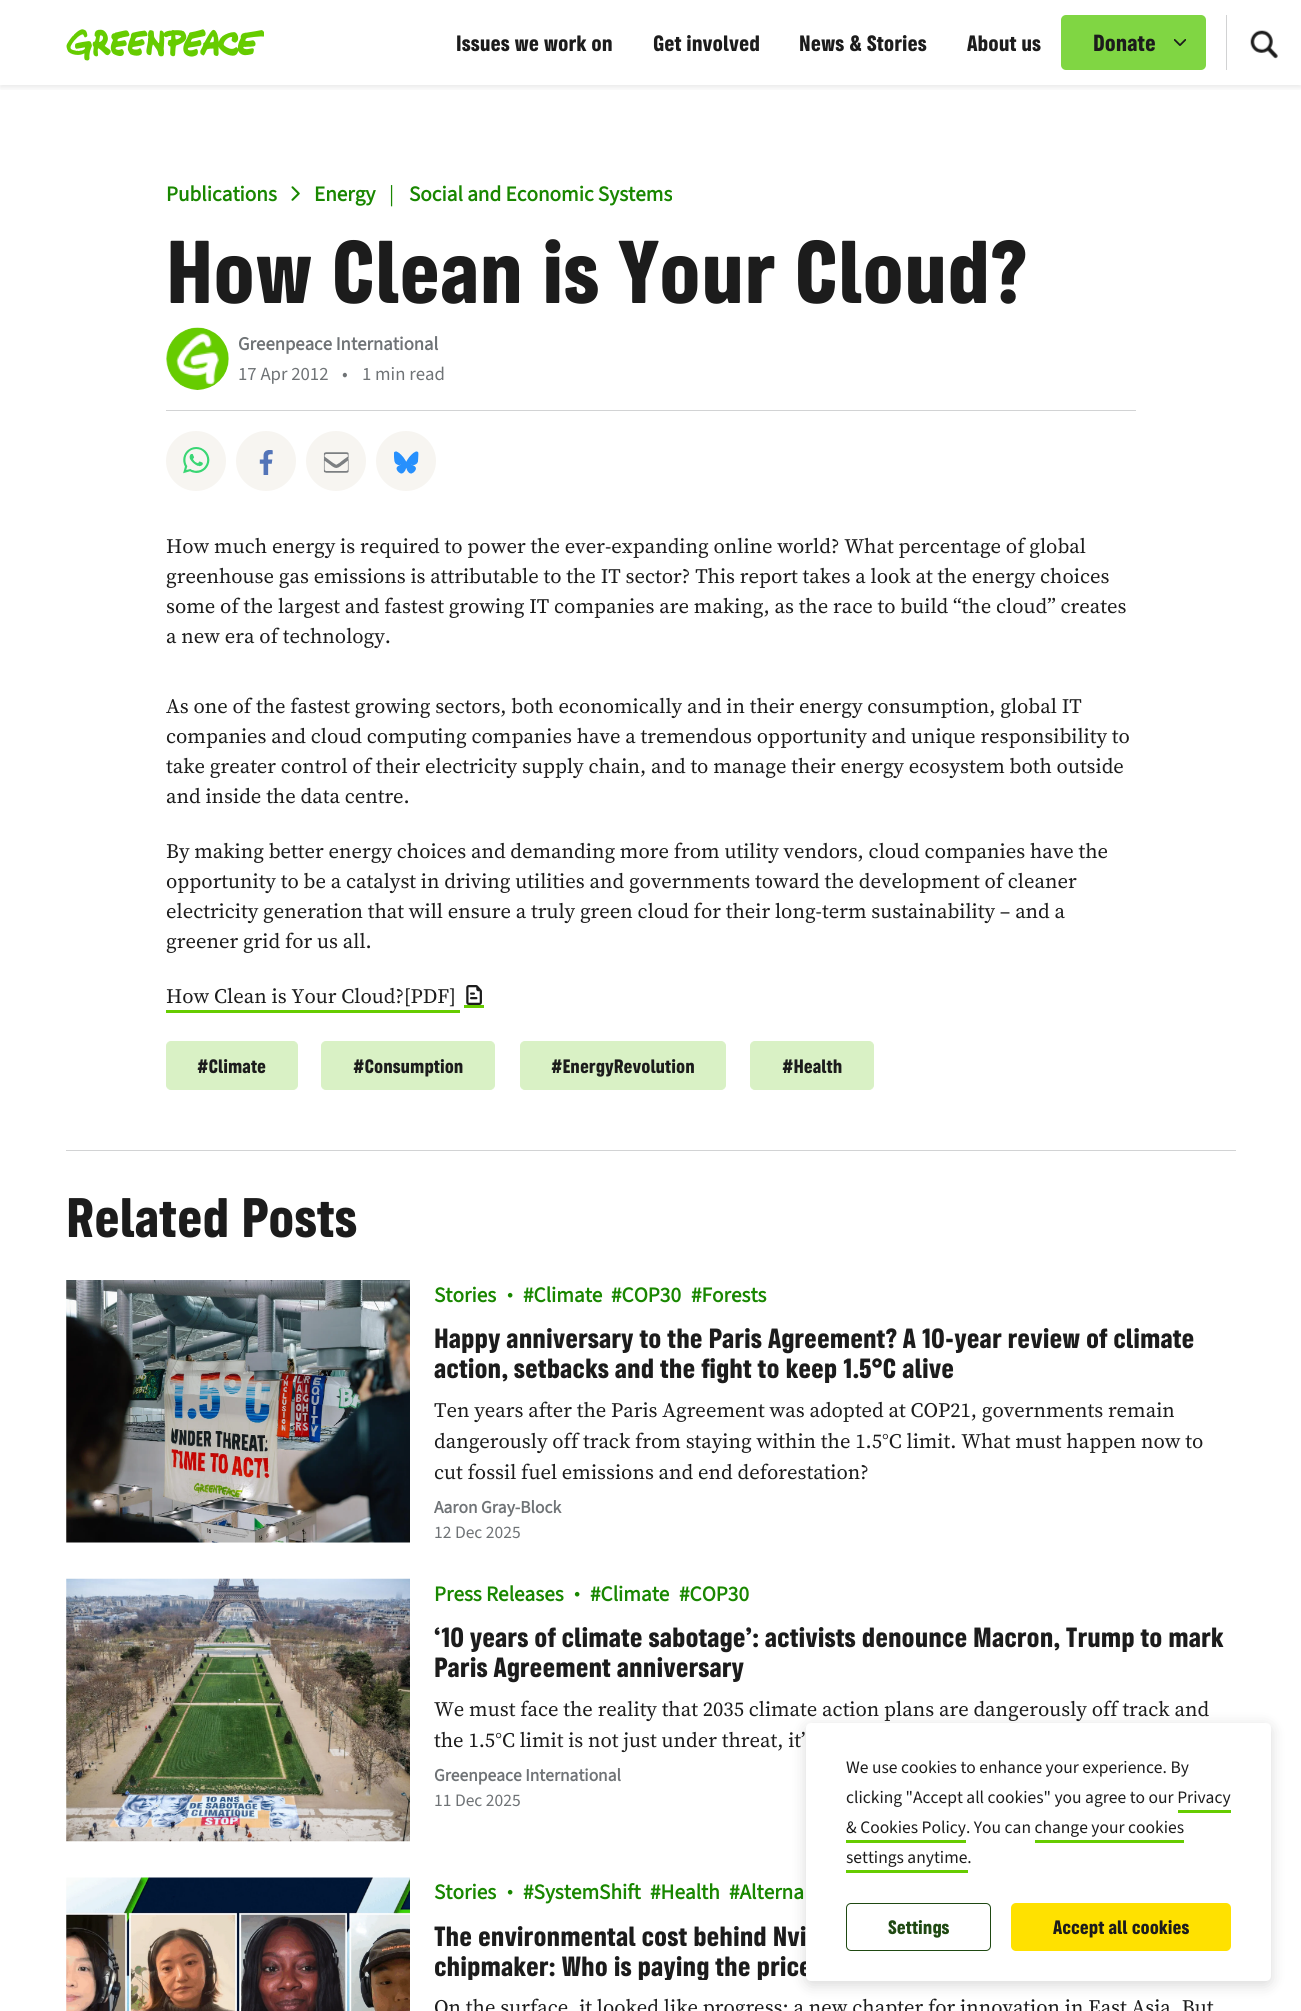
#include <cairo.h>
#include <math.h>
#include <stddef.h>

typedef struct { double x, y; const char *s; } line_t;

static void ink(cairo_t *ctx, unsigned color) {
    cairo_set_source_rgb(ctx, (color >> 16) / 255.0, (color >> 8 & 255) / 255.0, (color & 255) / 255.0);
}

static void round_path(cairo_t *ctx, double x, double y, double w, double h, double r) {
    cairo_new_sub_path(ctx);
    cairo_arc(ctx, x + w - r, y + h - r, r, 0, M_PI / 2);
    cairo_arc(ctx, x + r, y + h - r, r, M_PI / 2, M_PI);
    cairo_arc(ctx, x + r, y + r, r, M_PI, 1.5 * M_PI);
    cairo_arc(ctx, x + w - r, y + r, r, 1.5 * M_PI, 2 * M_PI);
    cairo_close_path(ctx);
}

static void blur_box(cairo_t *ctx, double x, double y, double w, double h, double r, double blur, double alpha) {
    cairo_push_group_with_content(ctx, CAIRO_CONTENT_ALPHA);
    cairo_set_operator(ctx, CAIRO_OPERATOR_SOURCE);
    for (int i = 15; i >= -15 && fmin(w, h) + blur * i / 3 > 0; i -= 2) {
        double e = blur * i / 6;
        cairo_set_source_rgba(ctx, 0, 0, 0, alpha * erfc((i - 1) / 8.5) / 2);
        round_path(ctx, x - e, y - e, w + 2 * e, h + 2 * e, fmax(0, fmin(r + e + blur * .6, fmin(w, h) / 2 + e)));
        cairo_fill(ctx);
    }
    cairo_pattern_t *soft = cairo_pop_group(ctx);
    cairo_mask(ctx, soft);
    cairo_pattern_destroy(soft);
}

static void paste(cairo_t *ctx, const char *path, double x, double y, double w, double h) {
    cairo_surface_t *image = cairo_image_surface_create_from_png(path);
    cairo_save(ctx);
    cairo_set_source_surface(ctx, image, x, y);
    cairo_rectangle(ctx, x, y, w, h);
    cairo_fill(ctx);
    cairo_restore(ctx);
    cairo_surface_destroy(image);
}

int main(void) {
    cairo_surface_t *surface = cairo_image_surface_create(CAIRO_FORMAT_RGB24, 1301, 2011);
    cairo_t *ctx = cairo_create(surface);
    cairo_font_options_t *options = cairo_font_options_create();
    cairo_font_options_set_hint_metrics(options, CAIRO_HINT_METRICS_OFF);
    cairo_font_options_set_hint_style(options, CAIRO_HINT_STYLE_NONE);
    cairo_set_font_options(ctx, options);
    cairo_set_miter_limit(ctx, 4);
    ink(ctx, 0xFFFFFF);
    cairo_paint(ctx);
    cairo_save(ctx);
    cairo_rectangle(ctx, 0, 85, 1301, 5);
    cairo_clip(ctx);
    ink(ctx, 0x000000);
    blur_box(ctx, 0, 3, 1301, 85, 0, 2.5, 0.08);
    cairo_restore(ctx);
    paste(ctx, "media/1.png", 66, 29, 198, 32);
    cairo_select_font_face(ctx, "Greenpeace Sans", CAIRO_FONT_SLANT_NORMAL, CAIRO_FONT_WEIGHT_BOLD);
    cairo_set_font_size(ctx, 20);
    ink(ctx, 0x1C1C1C);
    {
        static const line_t items[] = {
            {456, 51, "Issues we work on"},
            {653, 51, "Get involved"},
            {799, 51, "News & Stories"},
            {967, 51, "About us"},
        };
        for (size_t i = 0; i < sizeof items / sizeof *items; i++) {
            cairo_move_to(ctx, items[i].x, items[i].y);
            cairo_show_text(ctx, items[i].s);
        }
    }
    ink(ctx, 0x80D643);
    round_path(ctx, 1061, 15, 145, 55, 5);
    cairo_fill(ctx);
    cairo_set_font_size(ctx, 21);
    ink(ctx, 0x1C1C1C);
    cairo_move_to(ctx, 1093, 51);
    cairo_show_text(ctx, "Donate");
    paste(ctx, "media/2.png", 1174, 39, 12, 7);
    ink(ctx, 0xD1D2D3);
    cairo_rectangle(ctx, 1226, 15, 1, 55);
    cairo_fill(ctx);
    paste(ctx, "media/3.png", 1250, 30, 28, 29);
    cairo_select_font_face(ctx, "Source Sans 3", CAIRO_FONT_SLANT_NORMAL, CAIRO_FONT_WEIGHT_BOLD);
    cairo_set_font_size(ctx, 21.25);
    ink(ctx, 0x198700);
    cairo_move_to(ctx, 166, 201);
    cairo_show_text(ctx, "Publications");
    paste(ctx, "media/4.png", 291, 186, 9, 15);
    cairo_move_to(ctx, 314, 201);
    cairo_show_text(ctx, "Energy");
    cairo_select_font_face(ctx, "Source Sans 3", CAIRO_FONT_SLANT_NORMAL, CAIRO_FONT_WEIGHT_NORMAL);
    cairo_move_to(ctx, 389, 201);
    cairo_show_text(ctx, "|");
    cairo_select_font_face(ctx, "Source Sans 3", CAIRO_FONT_SLANT_NORMAL, CAIRO_FONT_WEIGHT_BOLD);
    cairo_move_to(ctx, 409, 201);
    cairo_show_text(ctx, "Social and Economic Systems");
    cairo_select_font_face(ctx, "Greenpeace Sans", CAIRO_FONT_SLANT_NORMAL, CAIRO_FONT_WEIGHT_BOLD);
    cairo_set_font_size(ctx, 80);
    ink(ctx, 0x1C1C1C);
    cairo_move_to(ctx, 166, 303);
    cairo_show_text(ctx, "How Clean is Your Cloud?");
    ink(ctx, 0xD2D3D4);
    cairo_rectangle(ctx, 166, 410, 970, 1);
    cairo_fill(ctx);
    paste(ctx, "media/5.png", 166, 327, 63, 63);
    cairo_select_font_face(ctx, "Source Sans 3", CAIRO_FONT_SLANT_NORMAL, CAIRO_FONT_WEIGHT_BOLD);
    cairo_set_font_size(ctx, 18.75);
    ink(ctx, 0x6F7376);
    cairo_move_to(ctx, 238, 350);
    cairo_show_text(ctx, "Greenpeace International");
    cairo_select_font_face(ctx, "Source Sans 3", CAIRO_FONT_SLANT_NORMAL, CAIRO_FONT_WEIGHT_NORMAL);
    {
        static const line_t items[] = {
            {238, 380, "17 Apr 2012"},
            {342, 380, "•"},
            {362, 380, "1 min read"},
        };
        for (size_t i = 0; i < sizeof items / sizeof *items; i++) {
            cairo_move_to(ctx, items[i].x, items[i].y);
            cairo_show_text(ctx, items[i].s);
        }
    }
    ink(ctx, 0xF7F5F1);
    cairo_new_path(ctx);
    cairo_arc(ctx, 196, 461, 30, 0, 2 * M_PI);
    cairo_fill(ctx);
    paste(ctx, "media/6.png", 183, 447, 27, 27);
    cairo_arc(ctx, 266, 461, 30, 0, 2 * M_PI);
    cairo_fill(ctx);
    paste(ctx, "media/7.png", 259, 450, 14, 25);
    cairo_arc(ctx, 336, 461, 30, 0, 2 * M_PI);
    cairo_fill(ctx);
    paste(ctx, "media/8.png", 323, 452, 26, 21);
    cairo_arc(ctx, 406, 461, 30, 0, 2 * M_PI);
    cairo_fill(ctx);
    paste(ctx, "media/9.png", 394, 451, 25, 23);
    cairo_select_font_face(ctx, "Source Serif 4", CAIRO_FONT_SLANT_NORMAL, CAIRO_FONT_WEIGHT_NORMAL);
    cairo_set_font_size(ctx, 20.6);
    ink(ctx, 0x1C1C1C);
    {
        static const line_t items[] = {
            {166, 553, "How much energy is required to power the ever-expanding online world? What percentage of global"},
            {166, 583, "greenhouse gas emissions is attributable to the IT sector? This report takes a look at the energy choices"},
            {166, 613, "some of the largest and fastest growing IT companies are making, as the race to build “the cloud” creates"},
            {166, 643, "a new era of technology."},
            {166, 713, "As one of the fastest growing sectors, both economically and in their energy consumption, global IT"},
            {166, 743, "companies and cloud computing companies have a tremendous opportunity and unique responsibility to"},
            {166, 773, "take greater control of their electricity supply chain, and to manage their energy ecosystem both outside"},
            {166, 803, "and inside the data centre."},
            {166, 858, "By making better energy choices and demanding more from utility vendors, cloud companies have the"},
            {166, 888, "opportunity to be a catalyst in driving utilities and governments toward the development of cleaner"},
            {166, 918, "electricity generation that will ensure a truly green cloud for their long-term sustainability – and a"},
            {166, 948, "greener grid for us all."},
        };
        for (size_t i = 0; i < sizeof items / sizeof *items; i++) {
            cairo_move_to(ctx, items[i].x, items[i].y);
            cairo_show_text(ctx, items[i].s);
        }
    }
    ink(ctx, 0x66CC00);
    cairo_rectangle(ctx, 166, 1010, 294, 3);
    cairo_fill(ctx);
    cairo_rectangle(ctx, 464, 1005, 20, 3);
    cairo_fill(ctx);
    ink(ctx, 0x1C1C1C);
    cairo_move_to(ctx, 166, 1003);
    cairo_show_text(ctx, "How Clean is Your Cloud?[PDF]");
    paste(ctx, "media/10.png", 466, 985, 16, 20);
    ink(ctx, 0xD9F1C5);
    round_path(ctx, 166.5, 1041.5, 131, 48, 4.5);
    cairo_fill_preserve(ctx);
    cairo_set_line_width(ctx, 1);
    cairo_stroke(ctx);
    cairo_select_font_face(ctx, "Greenpeace Sans", CAIRO_FONT_SLANT_NORMAL, CAIRO_FONT_WEIGHT_BOLD);
    cairo_set_font_size(ctx, 17.5);
    ink(ctx, 0x1C1C1C);
    cairo_move_to(ctx, 197, 1073);
    cairo_show_text(ctx, "#Climate");
    ink(ctx, 0xD9F1C5);
    round_path(ctx, 321.5, 1041.5, 173, 48, 4.5);
    cairo_fill_preserve(ctx);
    cairo_stroke(ctx);
    ink(ctx, 0x1C1C1C);
    cairo_move_to(ctx, 353, 1073);
    cairo_show_text(ctx, "#Consumption");
    ink(ctx, 0xD9F1C5);
    round_path(ctx, 520.5, 1041.5, 205, 48, 4.5);
    cairo_fill_preserve(ctx);
    cairo_stroke(ctx);
    ink(ctx, 0x1C1C1C);
    cairo_move_to(ctx, 551, 1073);
    cairo_show_text(ctx, "#EnergyRevolution");
    ink(ctx, 0xD9F1C5);
    round_path(ctx, 750.5, 1041.5, 123, 48, 4.5);
    cairo_fill_preserve(ctx);
    cairo_stroke(ctx);
    ink(ctx, 0x1C1C1C);
    cairo_move_to(ctx, 782, 1073);
    cairo_show_text(ctx, "#Health");
    ink(ctx, 0xD2D3D4);
    cairo_rectangle(ctx, 66, 1150, 1170, 1);
    cairo_fill(ctx);
    cairo_set_font_size(ctx, 50);
    ink(ctx, 0x1C1C1C);
    cairo_move_to(ctx, 66, 1237);
    cairo_show_text(ctx, "Related Posts");
    paste(ctx, "media/11.png", 66, 1280, 344, 263);
    cairo_select_font_face(ctx, "Source Sans 3", CAIRO_FONT_SLANT_NORMAL, CAIRO_FONT_WEIGHT_BOLD);
    cairo_set_font_size(ctx, 21.25);
    ink(ctx, 0x198700);
    cairo_move_to(ctx, 434, 1302);
    cairo_show_text(ctx, "Stories");
    cairo_select_font_face(ctx, "Source Serif 4", CAIRO_FONT_SLANT_NORMAL, CAIRO_FONT_WEIGHT_NORMAL);
    cairo_set_font_size(ctx, 20.6);
    cairo_move_to(ctx, 507, 1302);
    cairo_show_text(ctx, "•");
    cairo_select_font_face(ctx, "Source Sans 3", CAIRO_FONT_SLANT_NORMAL, CAIRO_FONT_WEIGHT_BOLD);
    cairo_set_font_size(ctx, 21.25);
    {
        static const line_t items[] = {
            {523, 1302, "#Climate"},
            {611, 1302, "#COP30"},
            {691, 1302, "#Forests"},
        };
        for (size_t i = 0; i < sizeof items / sizeof *items; i++) {
            cairo_move_to(ctx, items[i].x, items[i].y);
            cairo_show_text(ctx, items[i].s);
        }
    }
    cairo_select_font_face(ctx, "Greenpeace Sans", CAIRO_FONT_SLANT_NORMAL, CAIRO_FONT_WEIGHT_BOLD);
    cairo_set_font_size(ctx, 25);
    ink(ctx, 0x1C1C1C);
    cairo_move_to(ctx, 434, 1348);
    cairo_show_text(ctx, "Happy anniversary to the Paris Agreement? A 10-year review of climate");
    cairo_move_to(ctx, 434, 1378);
    cairo_show_text(ctx, "action, setbacks and the fight to keep 1.5°C alive");
    cairo_select_font_face(ctx, "Source Serif 4", CAIRO_FONT_SLANT_NORMAL, CAIRO_FONT_WEIGHT_NORMAL);
    cairo_set_font_size(ctx, 20.6);
    {
        static const line_t items[] = {
            {434, 1417, "Ten years after the Paris Agreement was adopted at COP21, governments remain"},
            {434, 1448, "dangerously off track from staying within the 1.5°C limit. What must happen now to"},
            {434, 1479, "cut fossil fuel emissions and end deforestation?"},
        };
        for (size_t i = 0; i < sizeof items / sizeof *items; i++) {
            cairo_move_to(ctx, items[i].x, items[i].y);
            cairo_show_text(ctx, items[i].s);
        }
    }
    cairo_select_font_face(ctx, "Source Sans 3", CAIRO_FONT_SLANT_NORMAL, CAIRO_FONT_WEIGHT_BOLD);
    cairo_set_font_size(ctx, 17.5);
    ink(ctx, 0x6F7376);
    cairo_move_to(ctx, 434, 1513);
    cairo_show_text(ctx, "Aaron Gray-Block");
    cairo_select_font_face(ctx, "Source Sans 3", CAIRO_FONT_SLANT_NORMAL, CAIRO_FONT_WEIGHT_NORMAL);
    cairo_move_to(ctx, 434, 1538);
    cairo_show_text(ctx, "12 Dec 2025");
    paste(ctx, "media/12.png", 66, 1578, 344, 264);
    cairo_select_font_face(ctx, "Source Sans 3", CAIRO_FONT_SLANT_NORMAL, CAIRO_FONT_WEIGHT_BOLD);
    cairo_set_font_size(ctx, 21.25);
    ink(ctx, 0x198700);
    cairo_move_to(ctx, 434, 1601);
    cairo_show_text(ctx, "Press Releases");
    cairo_select_font_face(ctx, "Source Serif 4", CAIRO_FONT_SLANT_NORMAL, CAIRO_FONT_WEIGHT_NORMAL);
    cairo_set_font_size(ctx, 20.6);
    cairo_move_to(ctx, 574, 1601);
    cairo_show_text(ctx, "•");
    cairo_select_font_face(ctx, "Source Sans 3", CAIRO_FONT_SLANT_NORMAL, CAIRO_FONT_WEIGHT_BOLD);
    cairo_set_font_size(ctx, 21.25);
    cairo_move_to(ctx, 590, 1601);
    cairo_show_text(ctx, "#Climate");
    cairo_move_to(ctx, 679, 1601);
    cairo_show_text(ctx, "#COP30");
    cairo_select_font_face(ctx, "Greenpeace Sans", CAIRO_FONT_SLANT_NORMAL, CAIRO_FONT_WEIGHT_BOLD);
    cairo_set_font_size(ctx, 25);
    ink(ctx, 0x1C1C1C);
    cairo_move_to(ctx, 434, 1647);
    cairo_show_text(ctx, "‘10 years of climate sabotage’: activists denounce Macron, Trump to mark");
    cairo_move_to(ctx, 434, 1677);
    cairo_show_text(ctx, "Paris Agreement anniversary");
    cairo_select_font_face(ctx, "Source Serif 4", CAIRO_FONT_SLANT_NORMAL, CAIRO_FONT_WEIGHT_NORMAL);
    cairo_set_font_size(ctx, 20.6);
    cairo_move_to(ctx, 434, 1716);
    cairo_show_text(ctx, "We must face the reality that 2035 climate action plans are dangerously off track and");
    cairo_move_to(ctx, 434, 1747);
    cairo_show_text(ctx, "the 1.5°C limit is not just under threat, it’");
    cairo_select_font_face(ctx, "Source Sans 3", CAIRO_FONT_SLANT_NORMAL, CAIRO_FONT_WEIGHT_BOLD);
    cairo_set_font_size(ctx, 17.5);
    ink(ctx, 0x6F7376);
    cairo_move_to(ctx, 434, 1781);
    cairo_show_text(ctx, "Greenpeace International");
    cairo_select_font_face(ctx, "Source Sans 3", CAIRO_FONT_SLANT_NORMAL, CAIRO_FONT_WEIGHT_NORMAL);
    cairo_move_to(ctx, 434, 1806);
    cairo_show_text(ctx, "11 Dec 2025");
    paste(ctx, "media/13.png", 66, 1877, 344, 134);
    cairo_select_font_face(ctx, "Source Sans 3", CAIRO_FONT_SLANT_NORMAL, CAIRO_FONT_WEIGHT_BOLD);
    cairo_set_font_size(ctx, 21.25);
    ink(ctx, 0x198700);
    cairo_move_to(ctx, 434, 1899);
    cairo_show_text(ctx, "Stories");
    cairo_select_font_face(ctx, "Source Serif 4", CAIRO_FONT_SLANT_NORMAL, CAIRO_FONT_WEIGHT_NORMAL);
    cairo_set_font_size(ctx, 20.6);
    cairo_move_to(ctx, 507, 1899);
    cairo_show_text(ctx, "•");
    cairo_select_font_face(ctx, "Source Sans 3", CAIRO_FONT_SLANT_NORMAL, CAIRO_FONT_WEIGHT_BOLD);
    cairo_set_font_size(ctx, 21.25);
    {
        static const line_t items[] = {
            {523, 1899, "#SystemShift"},
            {650, 1899, "#Health"},
            {729, 1899, "#Alterna"},
        };
        for (size_t i = 0; i < sizeof items / sizeof *items; i++) {
            cairo_move_to(ctx, items[i].x, items[i].y);
            cairo_show_text(ctx, items[i].s);
        }
    }
    cairo_select_font_face(ctx, "Greenpeace Sans", CAIRO_FONT_SLANT_NORMAL, CAIRO_FONT_WEIGHT_BOLD);
    cairo_set_font_size(ctx, 25);
    ink(ctx, 0x1C1C1C);
    cairo_move_to(ctx, 434, 1946);
    cairo_show_text(ctx, "The environmental cost behind Nvi");
    cairo_save(ctx);
    cairo_rectangle(ctx, 434, 1920, 802, 60);
    cairo_clip(ctx);
    cairo_move_to(ctx, 434, 1976);
    cairo_show_text(ctx, "chipmaker: Who is paying the price");
    cairo_restore(ctx);
    cairo_select_font_face(ctx, "Source Serif 4", CAIRO_FONT_SLANT_NORMAL, CAIRO_FONT_WEIGHT_NORMAL);
    cairo_set_font_size(ctx, 20.6);
    cairo_move_to(ctx, 434, 2014);
    cairo_show_text(ctx, "On the surface, it looked like progress: a new chapter for innovation in East Asia. But");
    ink(ctx, 0x000000);
    blur_box(ctx, 806, 1726, 465, 259, 5, 7.5, 0.15);
    ink(ctx, 0xFFFFFF);
    round_path(ctx, 806, 1723, 465, 258, 5);
    cairo_fill(ctx);
    cairo_select_font_face(ctx, "Source Sans 3", CAIRO_FONT_SLANT_NORMAL, CAIRO_FONT_WEIGHT_NORMAL);
    cairo_set_font_size(ctx, 17.5);
    ink(ctx, 0x1C1C1C);
    {
        static const line_t items[] = {
            {846, 1773, "We use cookies to enhance your experience. By"},
            {846, 1803, "clicking \"Accept all cookies\" you agree to our Privacy"},
            {846, 1833, "& Cookies Policy. You can change your cookies"},
        };
        for (size_t i = 0; i < sizeof items / sizeof *items; i++) {
            cairo_move_to(ctx, items[i].x, items[i].y);
            cairo_show_text(ctx, items[i].s);
        }
    }
    ink(ctx, 0x66CC00);
    cairo_rectangle(ctx, 1178, 1810, 53, 3);
    cairo_fill(ctx);
    cairo_rectangle(ctx, 846, 1840, 120, 3);
    cairo_fill(ctx);
    ink(ctx, 0x1C1C1C);
    cairo_move_to(ctx, 846, 1863);
    cairo_show_text(ctx, "settings anytime.");
    ink(ctx, 0x66CC00);
    cairo_rectangle(ctx, 1035, 1840, 149, 3);
    cairo_fill(ctx);
    cairo_rectangle(ctx, 846, 1870, 122, 3);
    cairo_fill(ctx);
    round_path(ctx, 846.5, 1903.5, 144, 47, 4.5);
    ink(ctx, 0x1F4912);
    cairo_stroke(ctx);
    cairo_select_font_face(ctx, "Greenpeace Sans", CAIRO_FONT_SLANT_NORMAL, CAIRO_FONT_WEIGHT_BOLD);
    cairo_move_to(ctx, 888, 1934);
    cairo_show_text(ctx, "Settings");
    ink(ctx, 0xFFE100);
    round_path(ctx, 1011, 1903, 220, 48, 5);
    cairo_fill(ctx);
    ink(ctx, 0x1C1C1C);
    cairo_move_to(ctx, 1053, 1934);
    cairo_show_text(ctx, "Accept all cookies");
    cairo_surface_write_to_png(surface, "image.png");
    cairo_font_options_destroy(options);
    cairo_destroy(ctx);
    cairo_surface_destroy(surface);
    return 0;
}
